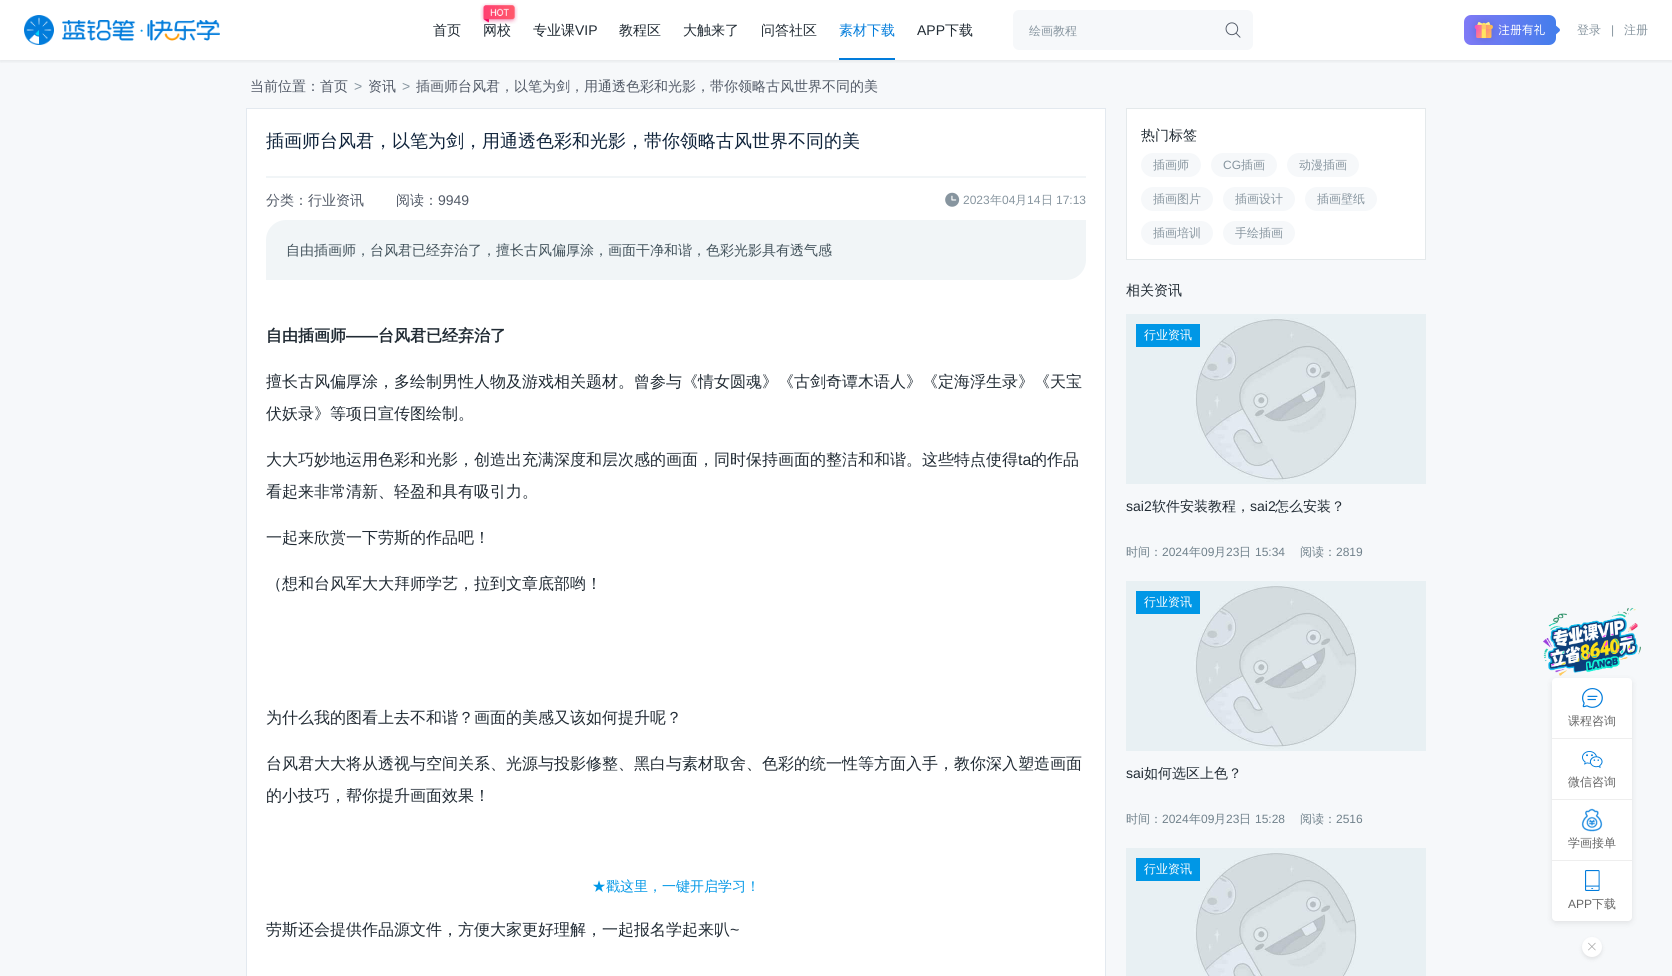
#include <cairo.h>
#include <math.h>
#include <stddef.h>

typedef struct { double x, y; const char *s; } line_t;

static void ink(cairo_t *ctx, unsigned color) {
    cairo_set_source_rgb(ctx, (color >> 16) / 255.0, (color >> 8 & 255) / 255.0, (color & 255) / 255.0);
}

static void round_path(cairo_t *ctx, double x, double y, double w, double h, double r) {
    cairo_new_sub_path(ctx);
    cairo_arc(ctx, x + w - r, y + h - r, r, 0, M_PI / 2);
    cairo_arc(ctx, x + r, y + h - r, r, M_PI / 2, M_PI);
    cairo_arc(ctx, x + r, y + r, r, M_PI, 1.5 * M_PI);
    cairo_arc(ctx, x + w - r, y + r, r, 1.5 * M_PI, 2 * M_PI);
    cairo_close_path(ctx);
}

static void blur_box(cairo_t *ctx, double x, double y, double w, double h, double r, double blur, double alpha) {
    cairo_push_group_with_content(ctx, CAIRO_CONTENT_ALPHA);
    cairo_set_operator(ctx, CAIRO_OPERATOR_SOURCE);
    for (int i = 15; i >= -15 && fmin(w, h) + blur * i / 3 > 0; i -= 2) {
        double e = blur * i / 6;
        cairo_set_source_rgba(ctx, 0, 0, 0, alpha * erfc((i - 1) / 8.5) / 2);
        round_path(ctx, x - e, y - e, w + 2 * e, h + 2 * e, fmax(0, fmin(r + e + blur * .6, fmin(w, h) / 2 + e)));
        cairo_fill(ctx);
    }
    cairo_pattern_t *soft = cairo_pop_group(ctx);
    cairo_mask(ctx, soft);
    cairo_pattern_destroy(soft);
}

static void paste(cairo_t *ctx, const char *path, double x, double y, double w, double h) {
    cairo_surface_t *image = cairo_image_surface_create_from_png(path);
    cairo_save(ctx);
    cairo_set_source_surface(ctx, image, x, y);
    cairo_rectangle(ctx, x, y, w, h);
    cairo_fill(ctx);
    cairo_restore(ctx);
    cairo_surface_destroy(image);
}

int main(void) {
    cairo_surface_t *surface = cairo_image_surface_create(CAIRO_FORMAT_RGB24, 1672, 976);
    cairo_t *ctx = cairo_create(surface);
    cairo_font_options_t *options = cairo_font_options_create();
    cairo_font_options_set_hint_metrics(options, CAIRO_HINT_METRICS_OFF);
    cairo_font_options_set_hint_style(options, CAIRO_HINT_STYLE_NONE);
    cairo_set_font_options(ctx, options);
    cairo_set_miter_limit(ctx, 4);
    ink(ctx, 0xFFFFFF);
    cairo_paint(ctx);
    ink(ctx, 0xF6F8FA);
    cairo_rectangle(ctx, 0, 60, 1672, 916);
    cairo_fill(ctx);
    cairo_save(ctx);
    cairo_rectangle(ctx, 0, 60, 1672, 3);
    cairo_clip(ctx);
    ink(ctx, 0x212B34);
    blur_box(ctx, 0, 1, 1672, 60, 0, 2.5, 0.1);
    cairo_restore(ctx);
    paste(ctx, "media/1.png", 24, 15, 196, 30);
    cairo_select_font_face(ctx, "WenQuanYi Zen Hei Medium", CAIRO_FONT_SLANT_NORMAL, CAIRO_FONT_WEIGHT_NORMAL);
    cairo_set_font_size(ctx, 14);
    ink(ctx, 0x212B34);
    cairo_move_to(ctx, 433, 35);
    cairo_show_text(ctx, "首页");
    cairo_move_to(ctx, 483, 35);
    cairo_show_text(ctx, "网校");
    paste(ctx, "media/2.png", 480, 3, 38, 21);
    cairo_move_to(ctx, 533, 35);
    cairo_show_text(ctx, "专业课");
    cairo_select_font_face(ctx, "Liberation Sans", CAIRO_FONT_SLANT_NORMAL, CAIRO_FONT_WEIGHT_NORMAL);
    cairo_move_to(ctx, 575, 35);
    cairo_show_text(ctx, "VIP");
    cairo_select_font_face(ctx, "WenQuanYi Zen Hei Medium", CAIRO_FONT_SLANT_NORMAL, CAIRO_FONT_WEIGHT_NORMAL);
    {
        static const line_t items[] = {
            {619, 35, "教程区"},
            {683, 35, "大触来了"},
            {761, 35, "问答社区"},
        };
        for (size_t i = 0; i < sizeof items / sizeof *items; i++) {
            cairo_move_to(ctx, items[i].x, items[i].y);
            cairo_show_text(ctx, items[i].s);
        }
    }
    ink(ctx, 0x027CDB);
    cairo_move_to(ctx, 839, 35);
    cairo_show_text(ctx, "素材下载");
    cairo_rectangle(ctx, 839, 58, 56, 2);
    cairo_fill(ctx);
    cairo_select_font_face(ctx, "Liberation Sans", CAIRO_FONT_SLANT_NORMAL, CAIRO_FONT_WEIGHT_NORMAL);
    ink(ctx, 0x212B34);
    cairo_move_to(ctx, 917, 35);
    cairo_show_text(ctx, "APP");
    cairo_select_font_face(ctx, "WenQuanYi Zen Hei Medium", CAIRO_FONT_SLANT_NORMAL, CAIRO_FONT_WEIGHT_NORMAL);
    cairo_move_to(ctx, 945, 35);
    cairo_show_text(ctx, "下载");
    ink(ctx, 0xF6F8FA);
    round_path(ctx, 1013, 10, 240, 40, 6);
    cairo_fill(ctx);
    cairo_set_font_size(ctx, 12);
    ink(ctx, 0x87959F);
    cairo_move_to(ctx, 1029, 35);
    cairo_show_text(ctx, "绘画教程");
    paste(ctx, "media/3.png", 1225, 22, 16, 16);
    paste(ctx, "media/4.png", 1464, 15, 96, 30);
    cairo_move_to(ctx, 1577, 34);
    cairo_show_text(ctx, "登录");
    cairo_select_font_face(ctx, "Liberation Sans", CAIRO_FONT_SLANT_NORMAL, CAIRO_FONT_WEIGHT_NORMAL);
    cairo_move_to(ctx, 1611, 34);
    cairo_show_text(ctx, "|");
    cairo_select_font_face(ctx, "WenQuanYi Zen Hei Medium", CAIRO_FONT_SLANT_NORMAL, CAIRO_FONT_WEIGHT_NORMAL);
    cairo_move_to(ctx, 1624, 34);
    cairo_show_text(ctx, "注册");
    cairo_set_font_size(ctx, 14);
    ink(ctx, 0x525A67);
    cairo_move_to(ctx, 250, 91);
    cairo_show_text(ctx, "当前位置：首页");
    cairo_select_font_face(ctx, "Liberation Sans", CAIRO_FONT_SLANT_NORMAL, CAIRO_FONT_WEIGHT_NORMAL);
    ink(ctx, 0x87959F);
    cairo_move_to(ctx, 354, 91);
    cairo_show_text(ctx, ">");
    cairo_select_font_face(ctx, "WenQuanYi Zen Hei Medium", CAIRO_FONT_SLANT_NORMAL, CAIRO_FONT_WEIGHT_NORMAL);
    ink(ctx, 0x525A67);
    cairo_move_to(ctx, 368, 91);
    cairo_show_text(ctx, "资讯");
    cairo_select_font_face(ctx, "Liberation Sans", CAIRO_FONT_SLANT_NORMAL, CAIRO_FONT_WEIGHT_NORMAL);
    ink(ctx, 0x87959F);
    cairo_move_to(ctx, 402, 91);
    cairo_show_text(ctx, ">");
    cairo_select_font_face(ctx, "WenQuanYi Zen Hei Medium", CAIRO_FONT_SLANT_NORMAL, CAIRO_FONT_WEIGHT_NORMAL);
    ink(ctx, 0x525A67);
    cairo_move_to(ctx, 416, 91);
    cairo_show_text(ctx, "插画师台风君，以笔为剑，用通透色彩和光影，带你领略古风世界不同的美");
    ink(ctx, 0xFFFFFF);
    cairo_rectangle(ctx, 246.5, 108.5, 859, 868);
    cairo_fill_preserve(ctx);
    ink(ctx, 0xE3E9EF);
    cairo_set_line_width(ctx, 1);
    cairo_stroke(ctx);
    ink(ctx, 0xF1F5F7);
    cairo_rectangle(ctx, 266, 176, 820, 2);
    cairo_fill(ctx);
    cairo_set_font_size(ctx, 18);
    ink(ctx, 0x0F233A);
    cairo_move_to(ctx, 266, 147);
    cairo_show_text(ctx, "插画师台风君，以笔为剑，用通透色彩和光影，带你领略古风世界不同的美");
    cairo_set_font_size(ctx, 14);
    ink(ctx, 0x525A67);
    cairo_move_to(ctx, 266, 205);
    cairo_show_text(ctx, "分类：行业资讯");
    cairo_move_to(ctx, 396, 205);
    cairo_show_text(ctx, "阅读：");
    cairo_select_font_face(ctx, "Liberation Sans", CAIRO_FONT_SLANT_NORMAL, CAIRO_FONT_WEIGHT_NORMAL);
    cairo_move_to(ctx, 438, 205);
    cairo_show_text(ctx, "9949");
    paste(ctx, "media/5.png", 945, 192, 15, 15);
    cairo_set_font_size(ctx, 12);
    ink(ctx, 0x87959F);
    cairo_move_to(ctx, 963, 204);
    cairo_show_text(ctx, "2023");
    cairo_select_font_face(ctx, "WenQuanYi Zen Hei Medium", CAIRO_FONT_SLANT_NORMAL, CAIRO_FONT_WEIGHT_NORMAL);
    cairo_move_to(ctx, 990, 204);
    cairo_show_text(ctx, "年");
    cairo_select_font_face(ctx, "Liberation Sans", CAIRO_FONT_SLANT_NORMAL, CAIRO_FONT_WEIGHT_NORMAL);
    cairo_move_to(ctx, 1002, 204);
    cairo_show_text(ctx, "04");
    cairo_select_font_face(ctx, "WenQuanYi Zen Hei Medium", CAIRO_FONT_SLANT_NORMAL, CAIRO_FONT_WEIGHT_NORMAL);
    cairo_move_to(ctx, 1015, 204);
    cairo_show_text(ctx, "月");
    cairo_select_font_face(ctx, "Liberation Sans", CAIRO_FONT_SLANT_NORMAL, CAIRO_FONT_WEIGHT_NORMAL);
    cairo_move_to(ctx, 1027, 204);
    cairo_show_text(ctx, "14");
    cairo_select_font_face(ctx, "WenQuanYi Zen Hei Medium", CAIRO_FONT_SLANT_NORMAL, CAIRO_FONT_WEIGHT_NORMAL);
    cairo_move_to(ctx, 1041, 204);
    cairo_show_text(ctx, "日");
    cairo_select_font_face(ctx, "Liberation Sans", CAIRO_FONT_SLANT_NORMAL, CAIRO_FONT_WEIGHT_NORMAL);
    cairo_move_to(ctx, 1056, 204);
    cairo_show_text(ctx, "17:13");
    ink(ctx, 0xF1F5F7);
    cairo_new_path(ctx);
    cairo_move_to(ctx, 286, 220);
    cairo_line_to(ctx, 1086, 220);
    cairo_line_to(ctx, 1086, 260);
    cairo_curve_to(ctx, 1086, 271, 1077, 280, 1066, 280);
    cairo_line_to(ctx, 266, 280);
    cairo_line_to(ctx, 266, 240);
    cairo_curve_to(ctx, 266, 229, 275, 220, 286, 220);
    cairo_close_path(ctx);
    cairo_fill(ctx);
    cairo_select_font_face(ctx, "WenQuanYi Zen Hei Medium", CAIRO_FONT_SLANT_NORMAL, CAIRO_FONT_WEIGHT_NORMAL);
    cairo_set_font_size(ctx, 14);
    ink(ctx, 0x43535C);
    cairo_move_to(ctx, 286, 255);
    cairo_show_text(ctx, "自由插画师，台风君已经弃治了，擅长古风偏厚涂，画面干净和谐，色彩光影具有透气感");
    cairo_select_font_face(ctx, "WenQuanYi Zen Hei", CAIRO_FONT_SLANT_NORMAL, CAIRO_FONT_WEIGHT_BOLD);
    cairo_set_font_size(ctx, 16);
    ink(ctx, 0x212B34);
    cairo_move_to(ctx, 266, 341);
    cairo_show_text(ctx, "自由插画师");
    cairo_select_font_face(ctx, "Liberation Sans", CAIRO_FONT_SLANT_NORMAL, CAIRO_FONT_WEIGHT_BOLD);
    cairo_move_to(ctx, 346, 341);
    cairo_show_text(ctx, "——");
    cairo_select_font_face(ctx, "WenQuanYi Zen Hei", CAIRO_FONT_SLANT_NORMAL, CAIRO_FONT_WEIGHT_BOLD);
    cairo_move_to(ctx, 378, 341);
    cairo_show_text(ctx, "台风君已经弃治了");
    cairo_select_font_face(ctx, "WenQuanYi Zen Hei Medium", CAIRO_FONT_SLANT_NORMAL, CAIRO_FONT_WEIGHT_NORMAL);
    {
        static const line_t items[] = {
            {266, 387, "擅长古风偏厚涂，多绘制男性人物及游戏相关题材。曾参与《情女圆魂》《古剑奇谭木语人》《定海浮生录》《天宝"},
            {266, 419, "伏妖录》等项日宣传图绘制。"},
            {266, 465, "大大巧妙地运用色彩和光影，创造出充满深度和层次感的画面，同时保持画面的整洁和和谐。这些特点使得"},
        };
        for (size_t i = 0; i < sizeof items / sizeof *items; i++) {
            cairo_move_to(ctx, items[i].x, items[i].y);
            cairo_show_text(ctx, items[i].s);
        }
    }
    cairo_select_font_face(ctx, "Liberation Sans", CAIRO_FONT_SLANT_NORMAL, CAIRO_FONT_WEIGHT_NORMAL);
    cairo_move_to(ctx, 1018, 465);
    cairo_show_text(ctx, "ta");
    cairo_select_font_face(ctx, "WenQuanYi Zen Hei Medium", CAIRO_FONT_SLANT_NORMAL, CAIRO_FONT_WEIGHT_NORMAL);
    {
        static const line_t items[] = {
            {1031, 465, "的作品"},
            {266, 497, "看起来非常清新、轻盈和具有吸引力。"},
            {266, 543, "一起来欣赏一下劳斯的作品吧！"},
            {266, 589, "（想和台风军大大拜师学艺，拉到文章底部哟！"},
            {266, 723, "为什么我的图看上去不和谐？画面的美感又该如何提升呢？"},
            {266, 769, "台风君大大将从透视与空间关系、光源与投影修整、黑白与素材取舍、色彩的统一性等方面入手，教你深入塑造画面"},
            {266, 801, "的小技巧，帮你提升画面效果！"},
        };
        for (size_t i = 0; i < sizeof items / sizeof *items; i++) {
            cairo_move_to(ctx, items[i].x, items[i].y);
            cairo_show_text(ctx, items[i].s);
        }
    }
    cairo_set_font_size(ctx, 14);
    ink(ctx, 0x0097E6);
    cairo_move_to(ctx, 592, 891);
    cairo_show_text(ctx, "★戳这里，一键开启学习！");
    cairo_set_font_size(ctx, 16);
    ink(ctx, 0x212B34);
    cairo_move_to(ctx, 266, 935);
    cairo_show_text(ctx, "劳斯还会提供作品源文件，方便大家更好理解，一起报名学起来叭");
    cairo_select_font_face(ctx, "Liberation Sans", CAIRO_FONT_SLANT_NORMAL, CAIRO_FONT_WEIGHT_NORMAL);
    cairo_move_to(ctx, 730, 935);
    cairo_show_text(ctx, "~");
    ink(ctx, 0xFFFFFF);
    cairo_rectangle(ctx, 1126.5, 108.5, 299, 151);
    cairo_fill_preserve(ctx);
    ink(ctx, 0xE4E9EB);
    cairo_stroke(ctx);
    cairo_select_font_face(ctx, "WenQuanYi Zen Hei Medium", CAIRO_FONT_SLANT_NORMAL, CAIRO_FONT_WEIGHT_NORMAL);
    cairo_set_font_size(ctx, 14);
    ink(ctx, 0x212B34);
    cairo_move_to(ctx, 1141, 140);
    cairo_show_text(ctx, "热门标签");
    ink(ctx, 0xF6F8FA);
    round_path(ctx, 1141, 153, 60, 24, 12);
    cairo_fill(ctx);
    cairo_set_font_size(ctx, 12);
    ink(ctx, 0x87959F);
    cairo_move_to(ctx, 1153, 169);
    cairo_show_text(ctx, "插画师");
    ink(ctx, 0xF6F8FA);
    round_path(ctx, 1211, 153, 66, 24, 12);
    cairo_fill(ctx);
    cairo_select_font_face(ctx, "Liberation Sans", CAIRO_FONT_SLANT_NORMAL, CAIRO_FONT_WEIGHT_NORMAL);
    ink(ctx, 0x87959F);
    cairo_move_to(ctx, 1223, 169);
    cairo_show_text(ctx, "CG");
    cairo_select_font_face(ctx, "WenQuanYi Zen Hei Medium", CAIRO_FONT_SLANT_NORMAL, CAIRO_FONT_WEIGHT_NORMAL);
    cairo_move_to(ctx, 1241, 169);
    cairo_show_text(ctx, "插画");
    ink(ctx, 0xF6F8FA);
    round_path(ctx, 1287, 153, 72, 24, 12);
    cairo_fill(ctx);
    ink(ctx, 0x87959F);
    cairo_move_to(ctx, 1299, 169);
    cairo_show_text(ctx, "动漫插画");
    ink(ctx, 0xF6F8FA);
    round_path(ctx, 1141, 187, 72, 24, 12);
    cairo_fill(ctx);
    ink(ctx, 0x87959F);
    cairo_move_to(ctx, 1153, 203);
    cairo_show_text(ctx, "插画图片");
    ink(ctx, 0xF6F8FA);
    round_path(ctx, 1223, 187, 72, 24, 12);
    cairo_fill(ctx);
    ink(ctx, 0x87959F);
    cairo_move_to(ctx, 1235, 203);
    cairo_show_text(ctx, "插画设计");
    ink(ctx, 0xF6F8FA);
    round_path(ctx, 1305, 187, 72, 24, 12);
    cairo_fill(ctx);
    ink(ctx, 0x87959F);
    cairo_move_to(ctx, 1317, 203);
    cairo_show_text(ctx, "插画壁纸");
    ink(ctx, 0xF6F8FA);
    round_path(ctx, 1141, 221, 72, 24, 12);
    cairo_fill(ctx);
    ink(ctx, 0x87959F);
    cairo_move_to(ctx, 1153, 237);
    cairo_show_text(ctx, "插画培训");
    ink(ctx, 0xF6F8FA);
    round_path(ctx, 1223, 221, 72, 24, 12);
    cairo_fill(ctx);
    ink(ctx, 0x87959F);
    cairo_move_to(ctx, 1235, 237);
    cairo_show_text(ctx, "手绘插画");
    cairo_set_font_size(ctx, 14);
    ink(ctx, 0x212B34);
    cairo_move_to(ctx, 1126, 295);
    cairo_show_text(ctx, "相关资讯");
    paste(ctx, "media/6.png", 1126, 314, 300, 170);
    ink(ctx, 0x0097E6);
    cairo_rectangle(ctx, 1136, 324, 64, 23);
    cairo_fill(ctx);
    cairo_set_font_size(ctx, 12);
    ink(ctx, 0xFFFFFF);
    cairo_move_to(ctx, 1144, 339);
    cairo_show_text(ctx, "行业资讯");
    cairo_select_font_face(ctx, "Liberation Sans", CAIRO_FONT_SLANT_NORMAL, CAIRO_FONT_WEIGHT_NORMAL);
    cairo_set_font_size(ctx, 14);
    ink(ctx, 0x212B34);
    cairo_move_to(ctx, 1126, 511);
    cairo_show_text(ctx, "sai2");
    cairo_select_font_face(ctx, "WenQuanYi Zen Hei Medium", CAIRO_FONT_SLANT_NORMAL, CAIRO_FONT_WEIGHT_NORMAL);
    cairo_move_to(ctx, 1152, 511);
    cairo_show_text(ctx, "软件安装教程，");
    cairo_select_font_face(ctx, "Liberation Sans", CAIRO_FONT_SLANT_NORMAL, CAIRO_FONT_WEIGHT_NORMAL);
    cairo_move_to(ctx, 1250, 511);
    cairo_show_text(ctx, "sai2");
    cairo_select_font_face(ctx, "WenQuanYi Zen Hei Medium", CAIRO_FONT_SLANT_NORMAL, CAIRO_FONT_WEIGHT_NORMAL);
    cairo_move_to(ctx, 1275, 511);
    cairo_show_text(ctx, "怎么安装？");
    cairo_set_font_size(ctx, 12);
    ink(ctx, 0x70818B);
    cairo_move_to(ctx, 1126, 556);
    cairo_show_text(ctx, "时间：");
    cairo_select_font_face(ctx, "Liberation Sans", CAIRO_FONT_SLANT_NORMAL, CAIRO_FONT_WEIGHT_NORMAL);
    cairo_move_to(ctx, 1162, 556);
    cairo_show_text(ctx, "2024");
    cairo_select_font_face(ctx, "WenQuanYi Zen Hei Medium", CAIRO_FONT_SLANT_NORMAL, CAIRO_FONT_WEIGHT_NORMAL);
    cairo_move_to(ctx, 1189, 556);
    cairo_show_text(ctx, "年");
    cairo_select_font_face(ctx, "Liberation Sans", CAIRO_FONT_SLANT_NORMAL, CAIRO_FONT_WEIGHT_NORMAL);
    cairo_move_to(ctx, 1201, 556);
    cairo_show_text(ctx, "09");
    cairo_select_font_face(ctx, "WenQuanYi Zen Hei Medium", CAIRO_FONT_SLANT_NORMAL, CAIRO_FONT_WEIGHT_NORMAL);
    cairo_move_to(ctx, 1214, 556);
    cairo_show_text(ctx, "月");
    cairo_select_font_face(ctx, "Liberation Sans", CAIRO_FONT_SLANT_NORMAL, CAIRO_FONT_WEIGHT_NORMAL);
    cairo_move_to(ctx, 1226, 556);
    cairo_show_text(ctx, "23");
    cairo_select_font_face(ctx, "WenQuanYi Zen Hei Medium", CAIRO_FONT_SLANT_NORMAL, CAIRO_FONT_WEIGHT_NORMAL);
    cairo_move_to(ctx, 1239, 556);
    cairo_show_text(ctx, "日");
    cairo_select_font_face(ctx, "Liberation Sans", CAIRO_FONT_SLANT_NORMAL, CAIRO_FONT_WEIGHT_NORMAL);
    cairo_move_to(ctx, 1255, 556);
    cairo_show_text(ctx, "15:34");
    cairo_select_font_face(ctx, "WenQuanYi Zen Hei Medium", CAIRO_FONT_SLANT_NORMAL, CAIRO_FONT_WEIGHT_NORMAL);
    cairo_move_to(ctx, 1300, 556);
    cairo_show_text(ctx, "阅读：");
    cairo_select_font_face(ctx, "Liberation Sans", CAIRO_FONT_SLANT_NORMAL, CAIRO_FONT_WEIGHT_NORMAL);
    cairo_move_to(ctx, 1336, 556);
    cairo_show_text(ctx, "2819");
    paste(ctx, "media/6.png", 1126, 581, 300, 170);
    ink(ctx, 0x0097E6);
    cairo_rectangle(ctx, 1136, 591, 64, 23);
    cairo_fill(ctx);
    cairo_select_font_face(ctx, "WenQuanYi Zen Hei Medium", CAIRO_FONT_SLANT_NORMAL, CAIRO_FONT_WEIGHT_NORMAL);
    ink(ctx, 0xFFFFFF);
    cairo_move_to(ctx, 1144, 606);
    cairo_show_text(ctx, "行业资讯");
    cairo_select_font_face(ctx, "Liberation Sans", CAIRO_FONT_SLANT_NORMAL, CAIRO_FONT_WEIGHT_NORMAL);
    cairo_set_font_size(ctx, 14);
    ink(ctx, 0x212B34);
    cairo_move_to(ctx, 1126, 778);
    cairo_show_text(ctx, "sai");
    cairo_select_font_face(ctx, "WenQuanYi Zen Hei Medium", CAIRO_FONT_SLANT_NORMAL, CAIRO_FONT_WEIGHT_NORMAL);
    cairo_move_to(ctx, 1144, 778);
    cairo_show_text(ctx, "如何选区上色？");
    cairo_set_font_size(ctx, 12);
    ink(ctx, 0x70818B);
    cairo_move_to(ctx, 1126, 823);
    cairo_show_text(ctx, "时间：");
    cairo_select_font_face(ctx, "Liberation Sans", CAIRO_FONT_SLANT_NORMAL, CAIRO_FONT_WEIGHT_NORMAL);
    cairo_move_to(ctx, 1162, 823);
    cairo_show_text(ctx, "2024");
    cairo_select_font_face(ctx, "WenQuanYi Zen Hei Medium", CAIRO_FONT_SLANT_NORMAL, CAIRO_FONT_WEIGHT_NORMAL);
    cairo_move_to(ctx, 1189, 823);
    cairo_show_text(ctx, "年");
    cairo_select_font_face(ctx, "Liberation Sans", CAIRO_FONT_SLANT_NORMAL, CAIRO_FONT_WEIGHT_NORMAL);
    cairo_move_to(ctx, 1201, 823);
    cairo_show_text(ctx, "09");
    cairo_select_font_face(ctx, "WenQuanYi Zen Hei Medium", CAIRO_FONT_SLANT_NORMAL, CAIRO_FONT_WEIGHT_NORMAL);
    cairo_move_to(ctx, 1214, 823);
    cairo_show_text(ctx, "月");
    cairo_select_font_face(ctx, "Liberation Sans", CAIRO_FONT_SLANT_NORMAL, CAIRO_FONT_WEIGHT_NORMAL);
    cairo_move_to(ctx, 1226, 823);
    cairo_show_text(ctx, "23");
    cairo_select_font_face(ctx, "WenQuanYi Zen Hei Medium", CAIRO_FONT_SLANT_NORMAL, CAIRO_FONT_WEIGHT_NORMAL);
    cairo_move_to(ctx, 1239, 823);
    cairo_show_text(ctx, "日");
    cairo_select_font_face(ctx, "Liberation Sans", CAIRO_FONT_SLANT_NORMAL, CAIRO_FONT_WEIGHT_NORMAL);
    cairo_move_to(ctx, 1255, 823);
    cairo_show_text(ctx, "15:28");
    cairo_select_font_face(ctx, "WenQuanYi Zen Hei Medium", CAIRO_FONT_SLANT_NORMAL, CAIRO_FONT_WEIGHT_NORMAL);
    cairo_move_to(ctx, 1300, 823);
    cairo_show_text(ctx, "阅读：");
    cairo_select_font_face(ctx, "Liberation Sans", CAIRO_FONT_SLANT_NORMAL, CAIRO_FONT_WEIGHT_NORMAL);
    cairo_move_to(ctx, 1336, 823);
    cairo_show_text(ctx, "2516");
    paste(ctx, "media/7.png", 1126, 848, 300, 128);
    ink(ctx, 0x0097E6);
    cairo_rectangle(ctx, 1136, 858, 64, 23);
    cairo_fill(ctx);
    cairo_select_font_face(ctx, "WenQuanYi Zen Hei Medium", CAIRO_FONT_SLANT_NORMAL, CAIRO_FONT_WEIGHT_NORMAL);
    ink(ctx, 0xFFFFFF);
    cairo_move_to(ctx, 1144, 873);
    cairo_show_text(ctx, "行业资讯");
    paste(ctx, "media/8.png", 1543, 607, 98, 69);
    ink(ctx, 0x000000);
    blur_box(ctx, 1552, 680, 80, 243, 4, 3, 0.09);
    ink(ctx, 0xFFFFFF);
    round_path(ctx, 1552, 678, 80, 243, 4);
    cairo_fill(ctx);
    paste(ctx, "media/9.png", 1582, 688, 21, 20);
    ink(ctx, 0x666666);
    cairo_move_to(ctx, 1568, 725);
    cairo_show_text(ctx, "课程咨询");
    ink(ctx, 0xEEEEEE);
    cairo_rectangle(ctx, 1552, 738, 80, 1);
    cairo_fill(ctx);
    paste(ctx, "media/10.png", 1582, 751, 21, 17);
    ink(ctx, 0x666666);
    cairo_move_to(ctx, 1568, 786);
    cairo_show_text(ctx, "微信咨询");
    ink(ctx, 0xEEEEEE);
    cairo_rectangle(ctx, 1552, 799, 80, 1);
    cairo_fill(ctx);
    paste(ctx, "media/11.png", 1581, 808, 22, 24);
    ink(ctx, 0x666666);
    cairo_move_to(ctx, 1568, 847);
    cairo_show_text(ctx, "学画接单");
    ink(ctx, 0xEEEEEE);
    cairo_rectangle(ctx, 1552, 860, 80, 1);
    cairo_fill(ctx);
    paste(ctx, "media/12.png", 1585, 870, 15, 21);
    cairo_select_font_face(ctx, "Liberation Sans", CAIRO_FONT_SLANT_NORMAL, CAIRO_FONT_WEIGHT_NORMAL);
    ink(ctx, 0x666666);
    cairo_move_to(ctx, 1568, 908);
    cairo_show_text(ctx, "APP");
    cairo_select_font_face(ctx, "WenQuanYi Zen Hei Medium", CAIRO_FONT_SLANT_NORMAL, CAIRO_FONT_WEIGHT_NORMAL);
    cairo_move_to(ctx, 1592, 908);
    cairo_show_text(ctx, "下载");
    ink(ctx, 0x000000);
    blur_box(ctx, 1582, 939, 20, 20, 10, 2, 0.09);
    ink(ctx, 0xFFFFFF);
    cairo_arc(ctx, 1592, 947, 10, 0, 2 * M_PI);
    cairo_fill(ctx);
    paste(ctx, "media/13.png", 1588, 942, 8, 9);
    cairo_surface_write_to_png(surface, "image.png");
    cairo_font_options_destroy(options);
    cairo_destroy(ctx);
    cairo_surface_destroy(surface);
    return 0;
}
